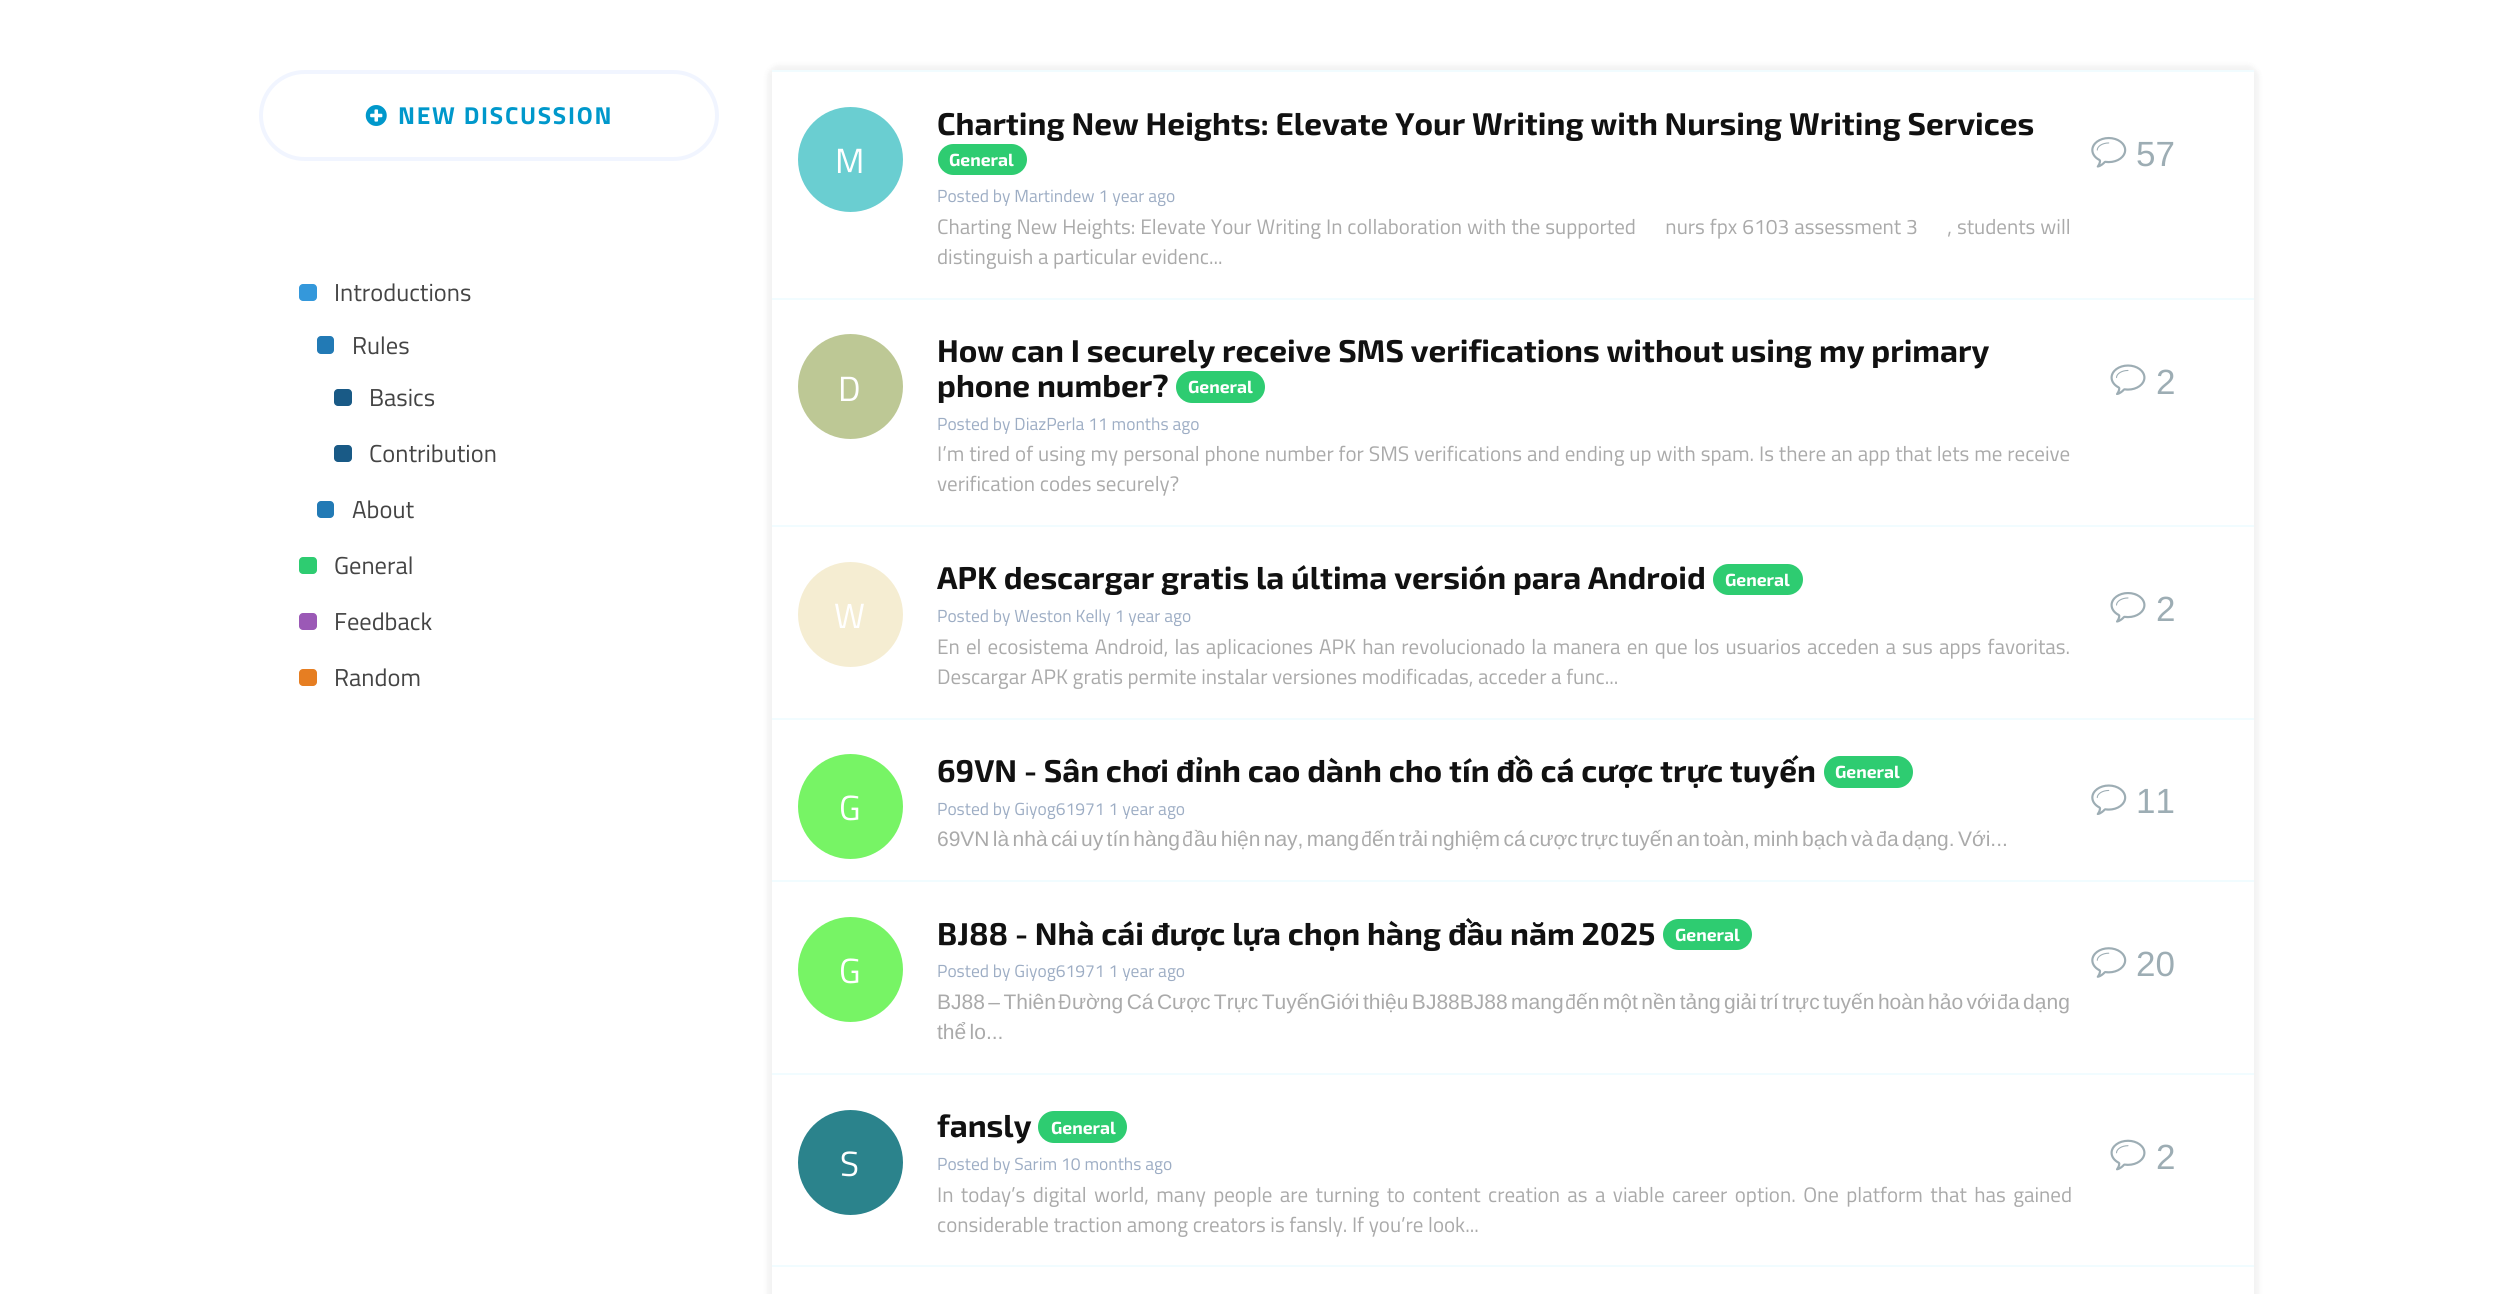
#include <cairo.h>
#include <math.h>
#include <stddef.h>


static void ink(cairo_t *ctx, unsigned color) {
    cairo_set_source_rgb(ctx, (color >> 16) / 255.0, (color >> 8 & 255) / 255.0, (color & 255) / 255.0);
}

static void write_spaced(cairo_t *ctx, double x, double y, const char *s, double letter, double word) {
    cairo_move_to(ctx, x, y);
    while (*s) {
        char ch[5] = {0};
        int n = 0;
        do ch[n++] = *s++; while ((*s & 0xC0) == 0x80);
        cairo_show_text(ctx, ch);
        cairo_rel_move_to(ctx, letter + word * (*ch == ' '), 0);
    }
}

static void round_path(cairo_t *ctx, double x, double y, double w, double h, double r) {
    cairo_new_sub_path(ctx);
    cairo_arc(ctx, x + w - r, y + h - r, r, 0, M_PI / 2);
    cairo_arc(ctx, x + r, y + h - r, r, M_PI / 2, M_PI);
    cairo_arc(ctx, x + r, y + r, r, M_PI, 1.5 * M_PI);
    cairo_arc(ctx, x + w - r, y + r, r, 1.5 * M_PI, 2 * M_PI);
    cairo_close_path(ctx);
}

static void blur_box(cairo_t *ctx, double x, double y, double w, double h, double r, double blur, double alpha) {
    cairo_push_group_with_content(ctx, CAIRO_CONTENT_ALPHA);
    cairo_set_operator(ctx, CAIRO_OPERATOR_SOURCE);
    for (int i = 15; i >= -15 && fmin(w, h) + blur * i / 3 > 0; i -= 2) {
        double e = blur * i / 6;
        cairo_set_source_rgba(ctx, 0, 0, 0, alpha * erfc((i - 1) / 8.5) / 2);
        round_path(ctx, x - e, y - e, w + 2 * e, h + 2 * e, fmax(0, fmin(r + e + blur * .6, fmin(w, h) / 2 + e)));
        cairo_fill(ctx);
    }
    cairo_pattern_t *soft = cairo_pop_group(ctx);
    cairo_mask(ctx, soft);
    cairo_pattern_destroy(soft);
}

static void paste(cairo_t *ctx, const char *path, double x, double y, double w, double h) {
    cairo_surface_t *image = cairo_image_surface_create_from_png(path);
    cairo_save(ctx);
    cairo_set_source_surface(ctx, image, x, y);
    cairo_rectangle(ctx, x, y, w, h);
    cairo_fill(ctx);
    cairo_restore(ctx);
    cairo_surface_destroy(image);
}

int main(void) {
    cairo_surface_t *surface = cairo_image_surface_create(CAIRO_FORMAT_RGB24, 2513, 1294);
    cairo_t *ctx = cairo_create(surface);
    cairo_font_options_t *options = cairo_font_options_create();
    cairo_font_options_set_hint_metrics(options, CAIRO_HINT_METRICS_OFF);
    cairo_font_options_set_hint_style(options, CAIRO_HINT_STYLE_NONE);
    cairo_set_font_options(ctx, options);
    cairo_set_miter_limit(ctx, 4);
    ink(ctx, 0xFFFFFF);
    cairo_paint(ctx);
    round_path(ctx, 261, 72, 456, 87, 43.5);
    ink(ctx, 0xF1F5FF);
    cairo_set_line_width(ctx, 4);
    cairo_stroke(ctx);
    paste(ctx, "media/1.png", 365, 105, 22, 21);
    cairo_select_font_face(ctx, "Titillium Web", CAIRO_FONT_SLANT_NORMAL, CAIRO_FONT_WEIGHT_BOLD);
    cairo_set_font_size(ctx, 24.5);
    ink(ctx, 0x0098CB);
    write_spaced(ctx, 398, 124, "NEW DISCUSSION", 1.75, 0);
    ink(ctx, 0x3498DB);
    round_path(ctx, 299, 284, 18, 17, 4);
    cairo_fill(ctx);
    cairo_select_font_face(ctx, "Titillium Web", CAIRO_FONT_SLANT_NORMAL, CAIRO_FONT_WEIGHT_NORMAL);
    ink(ctx, 0x444444);
    cairo_move_to(ctx, 334, 301);
    cairo_show_text(ctx, "Introductions");
    ink(ctx, 0x227AB5);
    round_path(ctx, 317, 336, 17, 18, 4);
    cairo_fill(ctx);
    ink(ctx, 0x444444);
    cairo_move_to(ctx, 352, 354);
    cairo_show_text(ctx, "Rules");
    ink(ctx, 0x195A86);
    round_path(ctx, 334, 389, 18, 17, 4);
    cairo_fill(ctx);
    ink(ctx, 0x444444);
    cairo_move_to(ctx, 369, 406);
    cairo_show_text(ctx, "Basics");
    ink(ctx, 0x195A86);
    round_path(ctx, 334, 445, 18, 17, 4);
    cairo_fill(ctx);
    ink(ctx, 0x444444);
    cairo_move_to(ctx, 369, 462);
    cairo_show_text(ctx, "Contribution");
    ink(ctx, 0x227AB5);
    round_path(ctx, 317, 501, 17, 17, 4);
    cairo_fill(ctx);
    ink(ctx, 0x444444);
    cairo_move_to(ctx, 352, 518);
    cairo_show_text(ctx, "About");
    ink(ctx, 0x2ECC71);
    round_path(ctx, 299, 557, 18, 17, 4);
    cairo_fill(ctx);
    ink(ctx, 0x444444);
    cairo_move_to(ctx, 334, 574);
    cairo_show_text(ctx, "General");
    ink(ctx, 0x9B59B6);
    round_path(ctx, 299, 613, 18, 17, 4);
    cairo_fill(ctx);
    ink(ctx, 0x444444);
    cairo_move_to(ctx, 334, 630);
    cairo_show_text(ctx, "Feedback");
    ink(ctx, 0xE67E22);
    round_path(ctx, 299, 669, 18, 17, 4);
    cairo_fill(ctx);
    ink(ctx, 0x444444);
    cairo_move_to(ctx, 334, 686);
    cairo_show_text(ctx, "Random");
    ink(ctx, 0x000000);
    blur_box(ctx, 767, 65, 1492, 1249, 12, 2.5, 0.05);
    ink(ctx, 0xFFFFFF);
    cairo_rectangle(ctx, 772, 72, 1482, 1222);
    cairo_fill(ctx);
    ink(ctx, 0xF1FCFF);
    cairo_rectangle(ctx, 772, 70, 1482, 2);
    cairo_fill(ctx);
    ink(ctx, 0x6ACED1);
    cairo_arc(ctx, 850.5, 159.5, 52.5, 0, 2 * M_PI);
    cairo_fill(ctx);
    cairo_set_font_size(ctx, 35);
    ink(ctx, 0xFFFFFF);
    cairo_move_to(ctx, 835, 173);
    cairo_show_text(ctx, "M");
    cairo_select_font_face(ctx, "Exo 2", CAIRO_FONT_SLANT_NORMAL, CAIRO_FONT_WEIGHT_BOLD);
    cairo_set_font_size(ctx, 31.5);
    ink(ctx, 0x111111);
    cairo_move_to(ctx, 937, 135);
    cairo_show_text(ctx, "Charting New Heights: Elevate Your Writing with Nursing Writing Services");
    ink(ctx, 0x2ECC71);
    round_path(ctx, 938, 144, 89, 31, 15.5);
    cairo_fill(ctx);
    cairo_set_font_size(ctx, 17.5);
    ink(ctx, 0xFFFFFF);
    cairo_move_to(ctx, 949, 166);
    cairo_show_text(ctx, "General");
    cairo_select_font_face(ctx, "Titillium Web", CAIRO_FONT_SLANT_NORMAL, CAIRO_FONT_WEIGHT_NORMAL);
    ink(ctx, 0x9DADC4);
    cairo_move_to(ctx, 937, 202);
    cairo_show_text(ctx, "Posted by Martindew 1 year ago");
    cairo_set_font_size(ctx, 21);
    ink(ctx, 0xAAAAAA);
    write_spaced(ctx, 937, 234, "Charting New Heights: Elevate Your Writing In collaboration with the supported      nurs fpx 6103 assessment 3      , students will", 0, 0.3);
    cairo_move_to(ctx, 937, 264);
    cairo_show_text(ctx, "distinguish a particular evidenc...");
    paste(ctx, "media/2.png", 2091, 136, 36, 32);
    cairo_select_font_face(ctx, "Liberation Sans", CAIRO_FONT_SLANT_NORMAL, CAIRO_FONT_WEIGHT_NORMAL);
    cairo_set_font_size(ctx, 35);
    ink(ctx, 0x9DADB4);
    cairo_move_to(ctx, 2136, 166);
    cairo_show_text(ctx, "57");
    ink(ctx, 0xF1FCFF);
    cairo_rectangle(ctx, 772, 298, 1482, 2);
    cairo_fill(ctx);
    ink(ctx, 0xBDC895);
    cairo_arc(ctx, 850.5, 386.5, 52.5, 0, 2 * M_PI);
    cairo_fill(ctx);
    cairo_select_font_face(ctx, "Titillium Web", CAIRO_FONT_SLANT_NORMAL, CAIRO_FONT_WEIGHT_NORMAL);
    ink(ctx, 0xFFFFFF);
    cairo_move_to(ctx, 838, 401);
    cairo_show_text(ctx, "D");
    cairo_select_font_face(ctx, "Exo 2", CAIRO_FONT_SLANT_NORMAL, CAIRO_FONT_WEIGHT_BOLD);
    cairo_set_font_size(ctx, 31.5);
    ink(ctx, 0x111111);
    cairo_move_to(ctx, 937, 362);
    cairo_show_text(ctx, "How can I securely receive SMS verifications without using my primary");
    cairo_move_to(ctx, 937, 397);
    cairo_show_text(ctx, "phone number?");
    ink(ctx, 0x2ECC71);
    round_path(ctx, 1176, 371, 89, 32, 16);
    cairo_fill(ctx);
    cairo_set_font_size(ctx, 17.5);
    ink(ctx, 0xFFFFFF);
    cairo_move_to(ctx, 1188, 393);
    cairo_show_text(ctx, "General");
    cairo_select_font_face(ctx, "Titillium Web", CAIRO_FONT_SLANT_NORMAL, CAIRO_FONT_WEIGHT_NORMAL);
    ink(ctx, 0x9DADC4);
    cairo_move_to(ctx, 937, 430);
    cairo_show_text(ctx, "Posted by DiazPerla 11 months ago");
    cairo_set_font_size(ctx, 21);
    ink(ctx, 0xAAAAAA);
    write_spaced(ctx, 937, 461, "I’m tired of using my personal phone number for SMS verifications and ending up with spam. Is there an app that lets me receive", 0, 0.3);
    cairo_move_to(ctx, 937, 491);
    cairo_show_text(ctx, "verification codes securely?");
    paste(ctx, "media/3.png", 2110, 364, 36, 31);
    cairo_select_font_face(ctx, "Liberation Sans", CAIRO_FONT_SLANT_NORMAL, CAIRO_FONT_WEIGHT_NORMAL);
    cairo_set_font_size(ctx, 35);
    ink(ctx, 0x9DADB4);
    cairo_move_to(ctx, 2156, 394);
    cairo_show_text(ctx, "2");
    ink(ctx, 0xF1FCFF);
    cairo_rectangle(ctx, 772, 525, 1482, 2);
    cairo_fill(ctx);
    ink(ctx, 0xF5EDD2);
    cairo_arc(ctx, 850.5, 614.5, 52.5, 0, 2 * M_PI);
    cairo_fill(ctx);
    cairo_select_font_face(ctx, "Titillium Web", CAIRO_FONT_SLANT_NORMAL, CAIRO_FONT_WEIGHT_NORMAL);
    ink(ctx, 0xFFFFFF);
    cairo_move_to(ctx, 834, 628);
    cairo_show_text(ctx, "W");
    cairo_select_font_face(ctx, "Exo 2", CAIRO_FONT_SLANT_NORMAL, CAIRO_FONT_WEIGHT_BOLD);
    cairo_set_font_size(ctx, 31.5);
    ink(ctx, 0x111111);
    cairo_move_to(ctx, 937, 589);
    cairo_show_text(ctx, "APK descargar gratis la última versión para Android");
    ink(ctx, 0x2ECC71);
    round_path(ctx, 1713, 564, 90, 31, 15.5);
    cairo_fill(ctx);
    cairo_set_font_size(ctx, 17.5);
    ink(ctx, 0xFFFFFF);
    cairo_move_to(ctx, 1725, 586);
    cairo_show_text(ctx, "General");
    cairo_select_font_face(ctx, "Titillium Web", CAIRO_FONT_SLANT_NORMAL, CAIRO_FONT_WEIGHT_NORMAL);
    ink(ctx, 0x9DADC4);
    cairo_move_to(ctx, 937, 622);
    cairo_show_text(ctx, "Posted by Weston Kelly 1 year ago");
    cairo_set_font_size(ctx, 21);
    ink(ctx, 0xAAAAAA);
    write_spaced(ctx, 937, 654, "En el ecosistema Android, las aplicaciones APK han revolucionado la manera en que los usuarios acceden a sus apps favoritas.", 0, 1.5);
    cairo_move_to(ctx, 937, 684);
    cairo_show_text(ctx, "Descargar APK gratis permite instalar versiones modificadas, acceder a func...");
    paste(ctx, "media/4.png", 2110, 592, 36, 31);
    cairo_select_font_face(ctx, "Liberation Sans", CAIRO_FONT_SLANT_NORMAL, CAIRO_FONT_WEIGHT_NORMAL);
    cairo_set_font_size(ctx, 35);
    ink(ctx, 0x9DADB4);
    cairo_move_to(ctx, 2156, 621);
    cairo_show_text(ctx, "2");
    ink(ctx, 0xF1FCFF);
    cairo_rectangle(ctx, 772, 718, 1482, 2);
    cairo_fill(ctx);
    ink(ctx, 0x77F465);
    cairo_arc(ctx, 850.5, 806.5, 52.5, 0, 2 * M_PI);
    cairo_fill(ctx);
    cairo_select_font_face(ctx, "Titillium Web", CAIRO_FONT_SLANT_NORMAL, CAIRO_FONT_WEIGHT_NORMAL);
    ink(ctx, 0xFFFFFF);
    cairo_move_to(ctx, 839, 820);
    cairo_show_text(ctx, "G");
    cairo_select_font_face(ctx, "Exo 2", CAIRO_FONT_SLANT_NORMAL, CAIRO_FONT_WEIGHT_BOLD);
    cairo_set_font_size(ctx, 31.5);
    ink(ctx, 0x111111);
    cairo_move_to(ctx, 937, 782);
    cairo_show_text(ctx, "69VN - Sân chơi đỉnh cao dành cho tín đồ cá cược trực tuyến");
    ink(ctx, 0x2ECC71);
    round_path(ctx, 1824, 756, 89, 32, 16);
    cairo_fill(ctx);
    cairo_set_font_size(ctx, 17.5);
    ink(ctx, 0xFFFFFF);
    cairo_move_to(ctx, 1835, 778);
    cairo_show_text(ctx, "General");
    cairo_select_font_face(ctx, "Titillium Web", CAIRO_FONT_SLANT_NORMAL, CAIRO_FONT_WEIGHT_NORMAL);
    ink(ctx, 0x9DADC4);
    cairo_move_to(ctx, 937, 815);
    cairo_show_text(ctx, "Posted by Giyog61971 1 year ago");
    cairo_select_font_face(ctx, "Liberation Sans", CAIRO_FONT_SLANT_NORMAL, CAIRO_FONT_WEIGHT_NORMAL);
    cairo_set_font_size(ctx, 21);
    ink(ctx, 0xAAAAAA);
    write_spaced(ctx, 937, 846, "69VN là nhà cái uy tín hàng", 0, -2.5);
    cairo_select_font_face(ctx, "Titillium Web", CAIRO_FONT_SLANT_NORMAL, CAIRO_FONT_WEIGHT_NORMAL);
    cairo_move_to(ctx, 1182, 846);
    cairo_show_text(ctx, "đ");
    cairo_select_font_face(ctx, "Liberation Sans", CAIRO_FONT_SLANT_NORMAL, CAIRO_FONT_WEIGHT_NORMAL);
    write_spaced(ctx, 1194, 846, "ầu hiện nay, mang", 0, -2.5);
    cairo_select_font_face(ctx, "Titillium Web", CAIRO_FONT_SLANT_NORMAL, CAIRO_FONT_WEIGHT_NORMAL);
    cairo_move_to(ctx, 1361, 846);
    cairo_show_text(ctx, "đ");
    cairo_select_font_face(ctx, "Liberation Sans", CAIRO_FONT_SLANT_NORMAL, CAIRO_FONT_WEIGHT_NORMAL);
    write_spaced(ctx, 1372, 846, "ến trải nghiệm cá cược trực tuyến an toàn, minh bạch và", 0, -2.5);
    cairo_select_font_face(ctx, "Titillium Web", CAIRO_FONT_SLANT_NORMAL, CAIRO_FONT_WEIGHT_NORMAL);
    cairo_move_to(ctx, 1876, 846);
    cairo_show_text(ctx, "đ");
    cairo_select_font_face(ctx, "Liberation Sans", CAIRO_FONT_SLANT_NORMAL, CAIRO_FONT_WEIGHT_NORMAL);
    write_spaced(ctx, 1887, 846, "a dạng. Với...", 0, -2.5);
    paste(ctx, "media/5.png", 2091, 784, 36, 31);
    cairo_set_font_size(ctx, 35);
    ink(ctx, 0x9DADB4);
    cairo_move_to(ctx, 2136, 813);
    cairo_show_text(ctx, "11");
    ink(ctx, 0xF1FCFF);
    cairo_rectangle(ctx, 772, 880, 1482, 2);
    cairo_fill(ctx);
    ink(ctx, 0x77F465);
    cairo_arc(ctx, 850.5, 969.5, 52.5, 0, 2 * M_PI);
    cairo_fill(ctx);
    cairo_select_font_face(ctx, "Titillium Web", CAIRO_FONT_SLANT_NORMAL, CAIRO_FONT_WEIGHT_NORMAL);
    ink(ctx, 0xFFFFFF);
    cairo_move_to(ctx, 839, 983);
    cairo_show_text(ctx, "G");
    cairo_select_font_face(ctx, "Exo 2", CAIRO_FONT_SLANT_NORMAL, CAIRO_FONT_WEIGHT_BOLD);
    cairo_set_font_size(ctx, 31.5);
    ink(ctx, 0x111111);
    cairo_move_to(ctx, 937, 945);
    cairo_show_text(ctx, "BJ88 - Nhà cái được lựa chọn hàng đầu năm 2025");
    ink(ctx, 0x2ECC71);
    round_path(ctx, 1663, 919, 89, 31, 15.5);
    cairo_fill(ctx);
    cairo_set_font_size(ctx, 17.5);
    ink(ctx, 0xFFFFFF);
    cairo_move_to(ctx, 1675, 941);
    cairo_show_text(ctx, "General");
    cairo_select_font_face(ctx, "Titillium Web", CAIRO_FONT_SLANT_NORMAL, CAIRO_FONT_WEIGHT_NORMAL);
    ink(ctx, 0x9DADC4);
    cairo_move_to(ctx, 937, 977);
    cairo_show_text(ctx, "Posted by Giyog61971 1 year ago");
    cairo_select_font_face(ctx, "Liberation Sans", CAIRO_FONT_SLANT_NORMAL, CAIRO_FONT_WEIGHT_NORMAL);
    cairo_set_font_size(ctx, 21);
    ink(ctx, 0xAAAAAA);
    write_spaced(ctx, 937, 1009, "BJ88 – Thiên", 0, -2.4);
    cairo_select_font_face(ctx, "Titillium Web", CAIRO_FONT_SLANT_NORMAL, CAIRO_FONT_WEIGHT_NORMAL);
    cairo_move_to(ctx, 1058, 1009);
    cairo_show_text(ctx, "Đ");
    cairo_select_font_face(ctx, "Liberation Sans", CAIRO_FONT_SLANT_NORMAL, CAIRO_FONT_WEIGHT_NORMAL);
    write_spaced(ctx, 1072, 1009, "ường Cá Cược Trực TuyếnGiới thiệu BJ88BJ88 mang", 0, -2.4);
    cairo_select_font_face(ctx, "Titillium Web", CAIRO_FONT_SLANT_NORMAL, CAIRO_FONT_WEIGHT_NORMAL);
    cairo_move_to(ctx, 1565, 1009);
    cairo_show_text(ctx, "đ");
    cairo_select_font_face(ctx, "Liberation Sans", CAIRO_FONT_SLANT_NORMAL, CAIRO_FONT_WEIGHT_NORMAL);
    write_spaced(ctx, 1576, 1009, "ến một nền tảng giải trí trực tuyến hoàn hảo với", 0, -2.4);
    cairo_select_font_face(ctx, "Titillium Web", CAIRO_FONT_SLANT_NORMAL, CAIRO_FONT_WEIGHT_NORMAL);
    cairo_move_to(ctx, 1997, 1009);
    cairo_show_text(ctx, "đ");
    cairo_select_font_face(ctx, "Liberation Sans", CAIRO_FONT_SLANT_NORMAL, CAIRO_FONT_WEIGHT_NORMAL);
    write_spaced(ctx, 2008, 1009, "a dạng", 0, -2.4);
    write_spaced(ctx, 937, 1039, "thể lo...", 0, -2.5);
    paste(ctx, "media/6.png", 2091, 947, 36, 31);
    cairo_set_font_size(ctx, 35);
    ink(ctx, 0x9DADB4);
    cairo_move_to(ctx, 2136, 976);
    cairo_show_text(ctx, "20");
    ink(ctx, 0xF1FCFF);
    cairo_rectangle(ctx, 772, 1073, 1482, 2);
    cairo_fill(ctx);
    ink(ctx, 0x2B838C);
    cairo_arc(ctx, 850.5, 1162.5, 52.5, 0, 2 * M_PI);
    cairo_fill(ctx);
    cairo_select_font_face(ctx, "Titillium Web", CAIRO_FONT_SLANT_NORMAL, CAIRO_FONT_WEIGHT_NORMAL);
    ink(ctx, 0xFFFFFF);
    cairo_move_to(ctx, 840, 1176);
    cairo_show_text(ctx, "S");
    cairo_select_font_face(ctx, "Exo 2", CAIRO_FONT_SLANT_NORMAL, CAIRO_FONT_WEIGHT_BOLD);
    cairo_set_font_size(ctx, 31.5);
    ink(ctx, 0x111111);
    cairo_move_to(ctx, 937, 1137);
    cairo_show_text(ctx, "fansly");
    ink(ctx, 0x2ECC71);
    round_path(ctx, 1038, 1111, 89, 32, 16);
    cairo_fill(ctx);
    cairo_set_font_size(ctx, 17.5);
    ink(ctx, 0xFFFFFF);
    cairo_move_to(ctx, 1051, 1134);
    cairo_show_text(ctx, "General");
    cairo_select_font_face(ctx, "Titillium Web", CAIRO_FONT_SLANT_NORMAL, CAIRO_FONT_WEIGHT_NORMAL);
    ink(ctx, 0x9DADC4);
    cairo_move_to(ctx, 937, 1170);
    cairo_show_text(ctx, "Posted by Sarim 10 months ago");
    cairo_set_font_size(ctx, 21);
    ink(ctx, 0xAAAAAA);
    write_spaced(ctx, 937, 1202, "In today’s digital world, many people are turning to content creation as a viable career option. One platform that has gained", 0, 2.75);
    cairo_move_to(ctx, 937, 1232);
    cairo_show_text(ctx, "considerable traction among creators is fansly. If you’re look...");
    paste(ctx, "media/7.png", 2110, 1139, 36, 32);
    cairo_select_font_face(ctx, "Liberation Sans", CAIRO_FONT_SLANT_NORMAL, CAIRO_FONT_WEIGHT_NORMAL);
    cairo_set_font_size(ctx, 35);
    ink(ctx, 0x9DADB4);
    cairo_move_to(ctx, 2156, 1169);
    cairo_show_text(ctx, "2");
    ink(ctx, 0xF1FCFF);
    cairo_rectangle(ctx, 772, 1265, 1482, 2);
    cairo_fill(ctx);
    cairo_surface_write_to_png(surface, "image.png");
    cairo_font_options_destroy(options);
    cairo_destroy(ctx);
    cairo_surface_destroy(surface);
    return 0;
}
